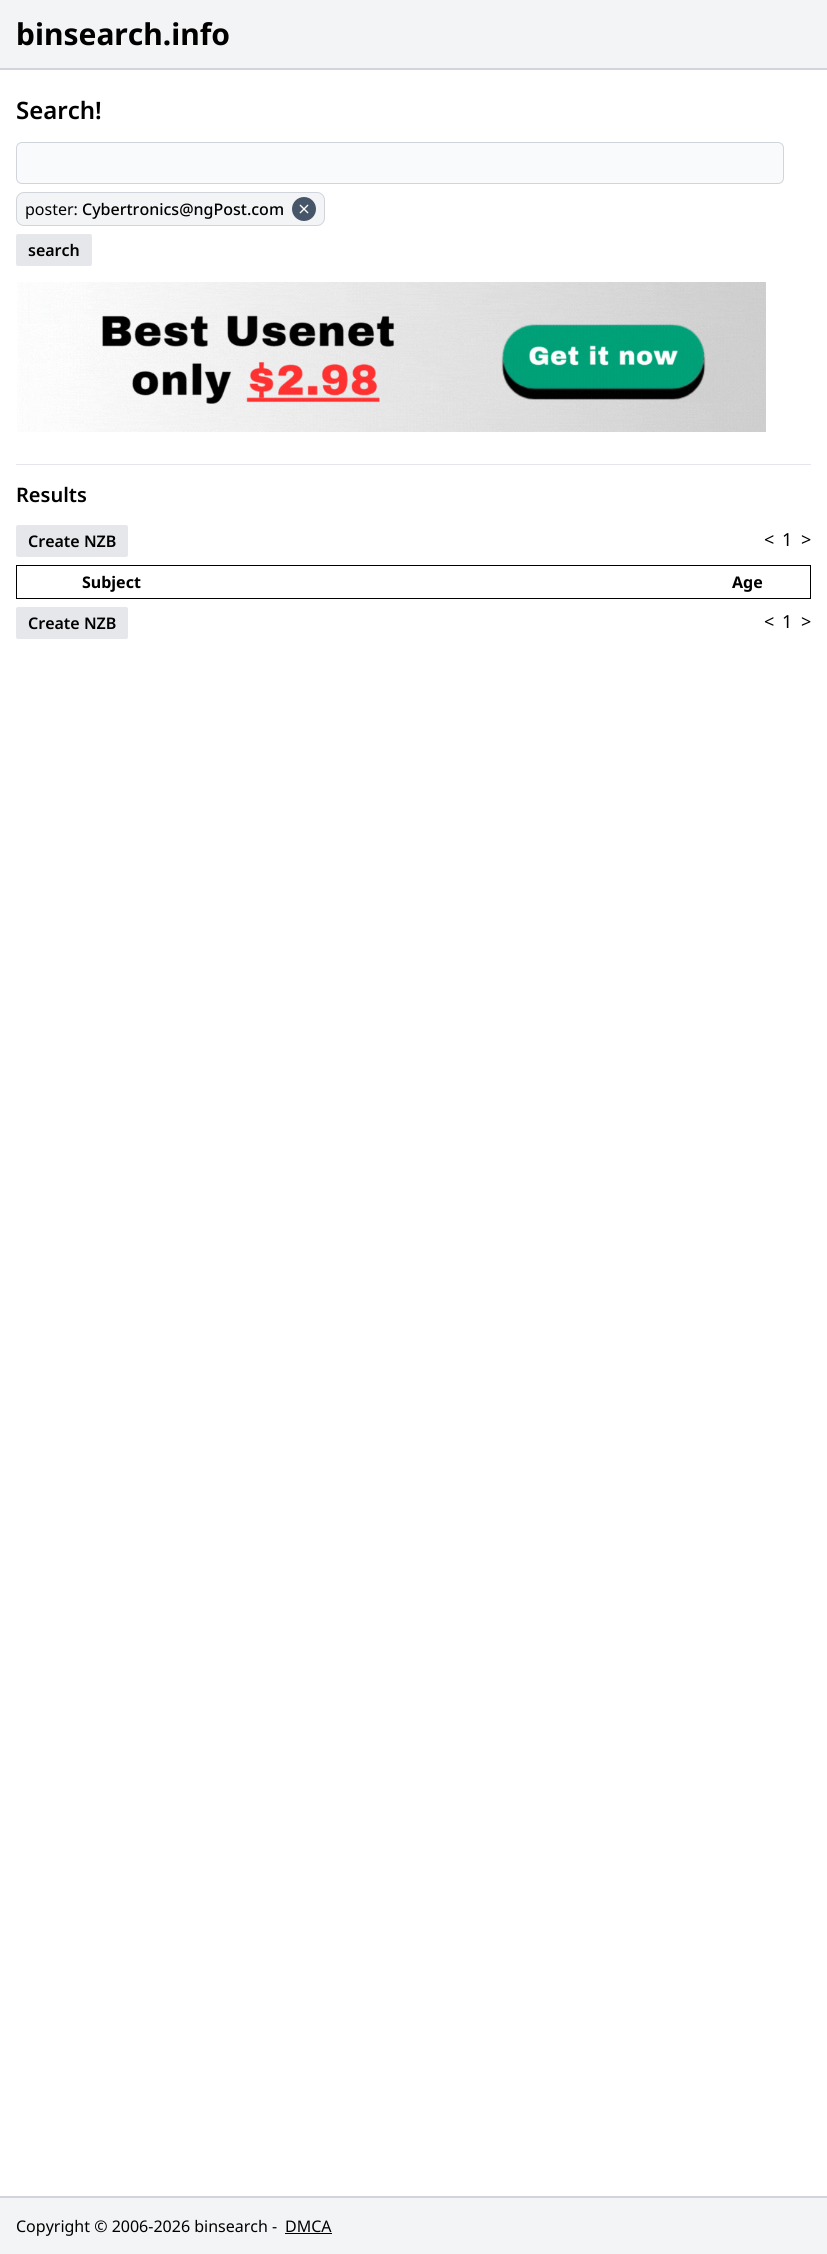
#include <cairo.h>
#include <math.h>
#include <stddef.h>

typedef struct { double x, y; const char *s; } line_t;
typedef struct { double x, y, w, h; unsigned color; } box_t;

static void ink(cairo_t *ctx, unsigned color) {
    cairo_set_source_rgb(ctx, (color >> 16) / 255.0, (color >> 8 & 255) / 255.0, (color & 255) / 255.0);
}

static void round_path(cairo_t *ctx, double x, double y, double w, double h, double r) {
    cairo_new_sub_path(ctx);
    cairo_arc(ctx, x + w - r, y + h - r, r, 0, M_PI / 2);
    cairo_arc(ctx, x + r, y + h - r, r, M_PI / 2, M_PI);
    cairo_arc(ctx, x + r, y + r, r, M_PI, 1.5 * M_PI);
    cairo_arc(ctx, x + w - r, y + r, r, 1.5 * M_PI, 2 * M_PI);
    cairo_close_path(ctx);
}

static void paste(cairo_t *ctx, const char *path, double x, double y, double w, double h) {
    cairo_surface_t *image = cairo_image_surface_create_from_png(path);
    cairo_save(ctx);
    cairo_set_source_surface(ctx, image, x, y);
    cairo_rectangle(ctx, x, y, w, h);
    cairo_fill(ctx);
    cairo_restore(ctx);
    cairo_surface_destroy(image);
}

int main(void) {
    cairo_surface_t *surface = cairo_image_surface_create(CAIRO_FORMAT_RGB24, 827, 2254);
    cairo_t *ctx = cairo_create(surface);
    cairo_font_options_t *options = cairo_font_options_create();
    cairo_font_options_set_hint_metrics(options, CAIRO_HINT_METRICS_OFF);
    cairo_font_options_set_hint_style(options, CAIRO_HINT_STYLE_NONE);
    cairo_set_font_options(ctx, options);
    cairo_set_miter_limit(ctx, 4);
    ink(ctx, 0xFFFFFF);
    cairo_paint(ctx);
    ink(ctx, 0xF3F4F6);
    cairo_rectangle(ctx, 0, 0, 827, 68);
    cairo_fill(ctx);
    ink(ctx, 0xD1D5DB);
    cairo_rectangle(ctx, 0, 68, 827, 2);
    cairo_fill(ctx);
    cairo_select_font_face(ctx, "Noto Sans", CAIRO_FONT_SLANT_NORMAL, CAIRO_FONT_WEIGHT_BOLD);
    cairo_set_font_size(ctx, 30);
    ink(ctx, 0x000000);
    cairo_move_to(ctx, 16, 45);
    cairo_show_text(ctx, "binsearch.info");
    cairo_select_font_face(ctx, "Noto Sans SemiBold", CAIRO_FONT_SLANT_NORMAL, CAIRO_FONT_WEIGHT_NORMAL);
    cairo_set_font_size(ctx, 24);
    cairo_move_to(ctx, 16, 119);
    cairo_show_text(ctx, "Search!");
    ink(ctx, 0xF9FAFB);
    round_path(ctx, 16.5, 142.5, 767, 41, 5.5);
    cairo_fill_preserve(ctx);
    ink(ctx, 0xD1D5DB);
    cairo_set_line_width(ctx, 1);
    cairo_stroke(ctx);
    ink(ctx, 0xF3F4F6);
    round_path(ctx, 16.5, 192.5, 308, 33, 7.5);
    cairo_fill_preserve(ctx);
    ink(ctx, 0xD1D5DB);
    cairo_stroke(ctx);
    cairo_select_font_face(ctx, "Noto Sans", CAIRO_FONT_SLANT_NORMAL, CAIRO_FONT_WEIGHT_NORMAL);
    cairo_set_font_size(ctx, 16);
    ink(ctx, 0x000000);
    cairo_move_to(ctx, 25, 215);
    cairo_show_text(ctx, "poster:");
    cairo_select_font_face(ctx, "Noto Sans Medium", CAIRO_FONT_SLANT_NORMAL, CAIRO_FONT_WEIGHT_NORMAL);
    cairo_move_to(ctx, 82, 215);
    cairo_show_text(ctx, "Cybertronics@ngPost.com");
    ink(ctx, 0x475569);
    cairo_new_path(ctx);
    cairo_arc(ctx, 304, 209, 12, 0, 2 * M_PI);
    cairo_fill(ctx);
    paste(ctx, "media/1.png", 299, 204, 10, 10);
    ink(ctx, 0xE5E7EB);
    round_path(ctx, 16, 234, 76, 32, 2);
    cairo_fill(ctx);
    cairo_select_font_face(ctx, "Noto Sans SemiBold", CAIRO_FONT_SLANT_NORMAL, CAIRO_FONT_WEIGHT_NORMAL);
    ink(ctx, 0x000000);
    cairo_move_to(ctx, 28, 256);
    cairo_show_text(ctx, "search");
    paste(ctx, "media/2.png", 17, 282, 749, 150);
    ink(ctx, 0xE5E7EB);
    cairo_rectangle(ctx, 16, 464, 795, 1);
    cairo_fill(ctx);
    cairo_set_font_size(ctx, 20);
    ink(ctx, 0x000000);
    cairo_move_to(ctx, 16, 502);
    cairo_show_text(ctx, "Results");
    ink(ctx, 0xE5E7EB);
    round_path(ctx, 16, 525, 112, 32, 2);
    cairo_fill(ctx);
    cairo_set_font_size(ctx, 16);
    ink(ctx, 0x000000);
    cairo_move_to(ctx, 28, 547);
    cairo_show_text(ctx, "Create NZB");
    cairo_select_font_face(ctx, "Noto Sans", CAIRO_FONT_SLANT_NORMAL, CAIRO_FONT_WEIGHT_NORMAL);
    cairo_set_font_size(ctx, 18);
    {
        static const line_t items[] = {
            {764, 546, "<"},
            {782, 546, "1"},
            {801, 546, ">"},
        };
        for (size_t i = 0; i < sizeof items / sizeof *items; i++) {
            cairo_move_to(ctx, items[i].x, items[i].y);
            cairo_show_text(ctx, items[i].s);
        }
    }
    {
        static const box_t items[] = {
            {16, 565, 795, 1, 0x000000},
            {810, 565, 1, 34, 0x000000},
            {16, 598, 795, 1, 0x000000},
            {16, 565, 1, 34, 0x000000},
        };
        for (size_t i = 0; i < sizeof items / sizeof *items; i++) {
            ink(ctx, items[i].color);
            cairo_rectangle(ctx, items[i].x, items[i].y, items[i].w, items[i].h);
            cairo_fill(ctx);
        }
    }
    cairo_select_font_face(ctx, "Noto Sans", CAIRO_FONT_SLANT_NORMAL, CAIRO_FONT_WEIGHT_BOLD);
    cairo_set_font_size(ctx, 16);
    cairo_move_to(ctx, 82, 588);
    cairo_show_text(ctx, "Subject");
    cairo_move_to(ctx, 732, 588);
    cairo_show_text(ctx, "Age");
    ink(ctx, 0xE5E7EB);
    round_path(ctx, 16, 607, 112, 32, 2);
    cairo_fill(ctx);
    cairo_select_font_face(ctx, "Noto Sans SemiBold", CAIRO_FONT_SLANT_NORMAL, CAIRO_FONT_WEIGHT_NORMAL);
    ink(ctx, 0x000000);
    cairo_move_to(ctx, 28, 629);
    cairo_show_text(ctx, "Create NZB");
    cairo_select_font_face(ctx, "Noto Sans", CAIRO_FONT_SLANT_NORMAL, CAIRO_FONT_WEIGHT_NORMAL);
    cairo_set_font_size(ctx, 18);
    {
        static const line_t items[] = {
            {764, 628, "<"},
            {782, 628, "1"},
            {801, 628, ">"},
        };
        for (size_t i = 0; i < sizeof items / sizeof *items; i++) {
            cairo_move_to(ctx, items[i].x, items[i].y);
            cairo_show_text(ctx, items[i].s);
        }
    }
    ink(ctx, 0xF3F4F6);
    cairo_rectangle(ctx, 0, 2198, 827, 56);
    cairo_fill(ctx);
    ink(ctx, 0xD1D5DB);
    cairo_rectangle(ctx, 0, 2196, 827, 2);
    cairo_fill(ctx);
    cairo_set_font_size(ctx, 16);
    ink(ctx, 0x000000);
    cairo_move_to(ctx, 16, 2232);
    cairo_show_text(ctx, "Copyright © 2006-2026 binsearch -");
    cairo_move_to(ctx, 285, 2232);
    cairo_show_text(ctx, "DMCA");
    cairo_rectangle(ctx, 285, 2233, 47, 1);
    cairo_fill(ctx);
    cairo_surface_write_to_png(surface, "image.png");
    cairo_font_options_destroy(options);
    cairo_destroy(ctx);
    cairo_surface_destroy(surface);
    return 0;
}
